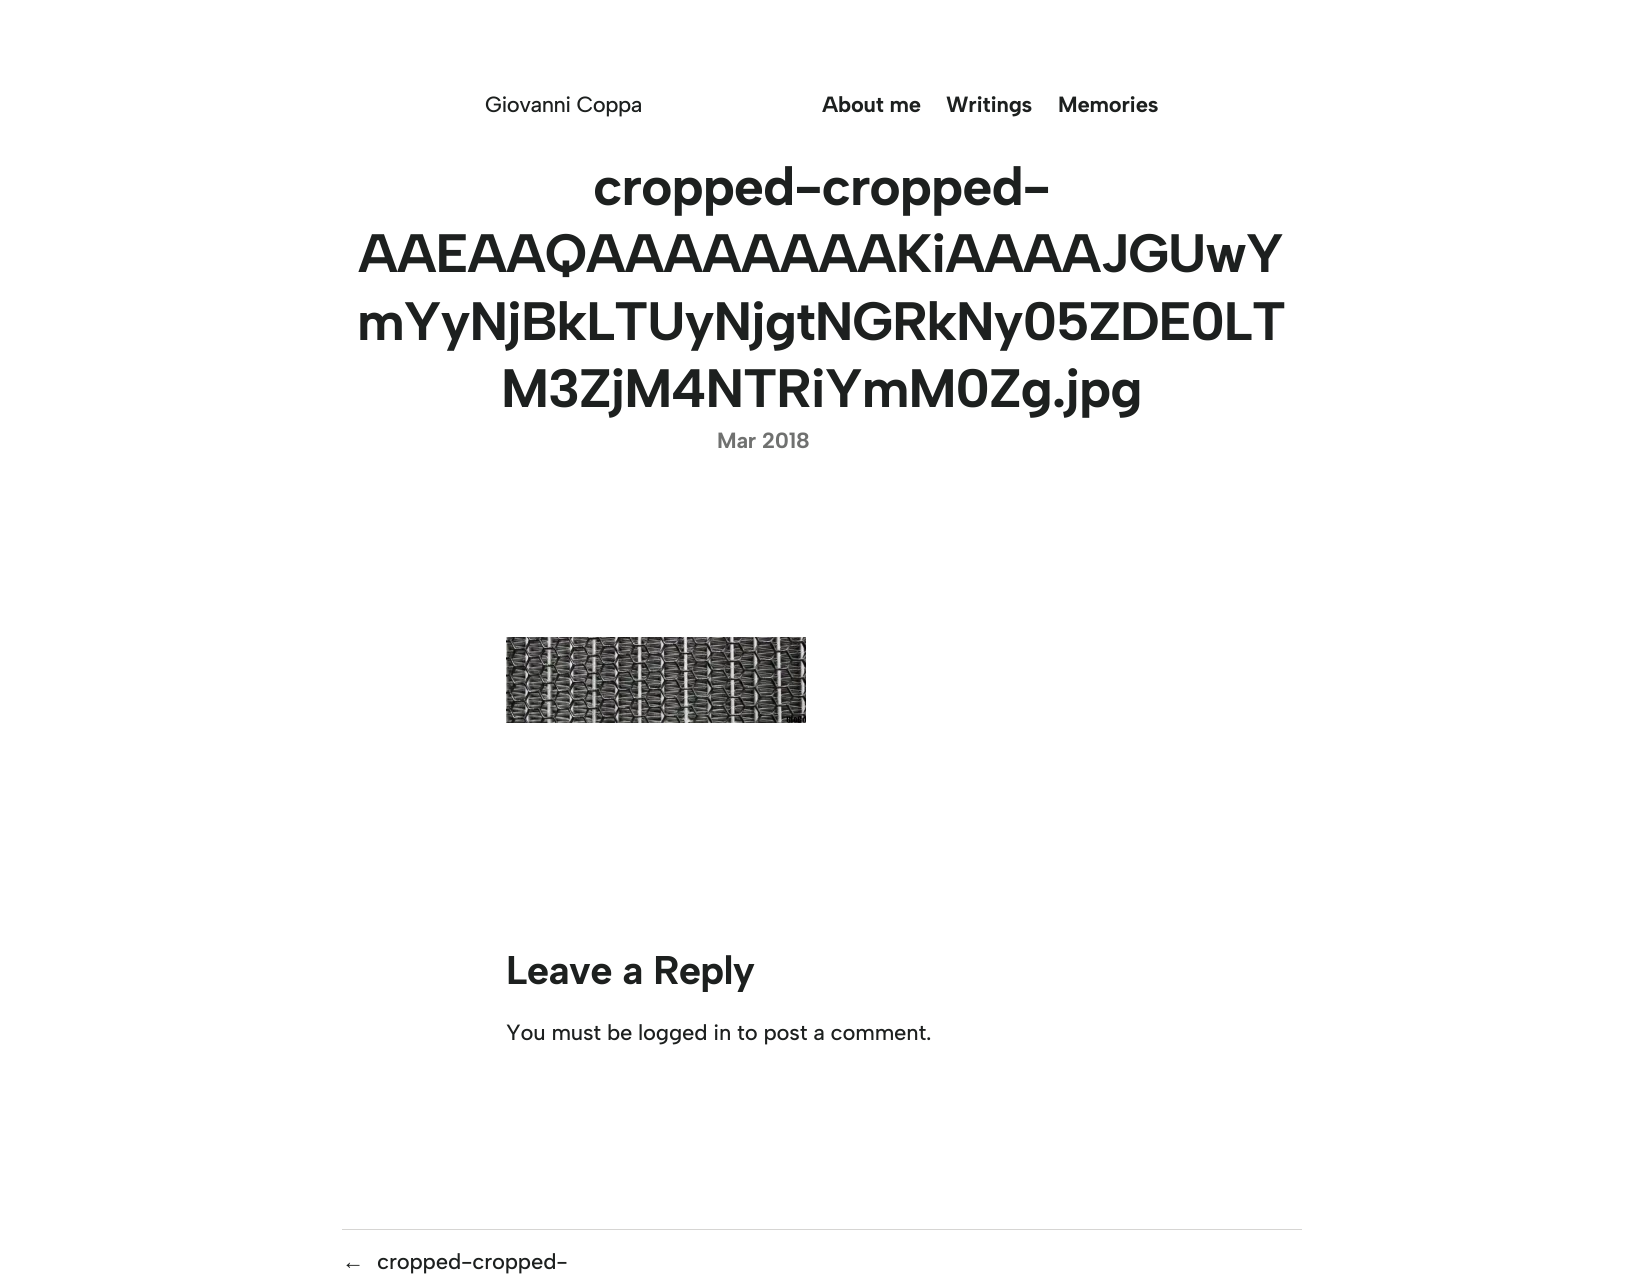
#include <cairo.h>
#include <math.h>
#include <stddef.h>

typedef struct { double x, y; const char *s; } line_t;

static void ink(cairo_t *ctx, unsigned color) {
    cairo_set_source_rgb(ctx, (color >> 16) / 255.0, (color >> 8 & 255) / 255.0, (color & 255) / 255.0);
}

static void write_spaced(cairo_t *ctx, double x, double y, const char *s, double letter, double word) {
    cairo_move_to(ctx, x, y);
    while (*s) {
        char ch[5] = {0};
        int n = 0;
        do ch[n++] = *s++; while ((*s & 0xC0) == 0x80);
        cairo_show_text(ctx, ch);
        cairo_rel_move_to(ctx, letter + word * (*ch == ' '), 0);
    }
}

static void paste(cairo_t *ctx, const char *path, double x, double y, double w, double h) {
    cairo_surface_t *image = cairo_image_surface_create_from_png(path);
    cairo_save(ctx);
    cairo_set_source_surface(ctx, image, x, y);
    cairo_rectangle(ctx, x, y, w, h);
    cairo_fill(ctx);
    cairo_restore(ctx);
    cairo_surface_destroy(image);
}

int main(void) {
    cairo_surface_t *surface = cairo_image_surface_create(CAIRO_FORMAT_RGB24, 1643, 1283);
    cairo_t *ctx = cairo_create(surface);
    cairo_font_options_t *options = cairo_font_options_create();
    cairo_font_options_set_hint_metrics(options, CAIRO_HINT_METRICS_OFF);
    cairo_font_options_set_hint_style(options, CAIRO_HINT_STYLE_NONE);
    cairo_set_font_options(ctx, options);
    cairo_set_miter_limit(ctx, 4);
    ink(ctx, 0xFFFFFF);
    cairo_paint(ctx);
    cairo_select_font_face(ctx, "Albert Sans Medium", CAIRO_FONT_SLANT_NORMAL, CAIRO_FONT_WEIGHT_NORMAL);
    cairo_set_font_size(ctx, 22);
    ink(ctx, 0x1D201F);
    write_spaced(ctx, 485, 112, "Giovanni Coppa", -0.5, 0);
    cairo_select_font_face(ctx, "Albert Sans", CAIRO_FONT_SLANT_NORMAL, CAIRO_FONT_WEIGHT_BOLD);
    {
        static const line_t items[] = {
            {822, 112, "About me"},
            {946, 112, "Writings"},
            {1058, 112, "Memories"},
        };
        for (size_t i = 0; i < sizeof items / sizeof *items; i++) {
            write_spaced(ctx, items[i].x, items[i].y, items[i].s, -0.2, 0);
        }
    }
    cairo_set_font_size(ctx, 54);
    {
        static const line_t items[] = {
            {593, 205, "cropped-cropped-"},
            {358, 272, "AAEAAQAAAAAAAAKiAAAAJGUwY"},
            {357, 340, "mYyNjBkLTUyNjgtNGRkNy05ZDE0LT"},
            {501, 407, "M3ZjM4NTRiYmM0Zg.jpg"},
        };
        for (size_t i = 0; i < sizeof items / sizeof *items; i++) {
            write_spaced(ctx, items[i].x, items[i].y, items[i].s, -1.1, 0);
        }
    }
    cairo_set_font_size(ctx, 22);
    ink(ctx, 0x707170);
    write_spaced(ctx, 717, 448, "Mar 2018", -0.2, 0);
    paste(ctx, "media/1.png", 506, 637, 300, 86);
    cairo_set_font_size(ctx, 40);
    ink(ctx, 0x1D201F);
    write_spaced(ctx, 506, 984, "Leave a Reply", -0.75, 0);
    cairo_select_font_face(ctx, "Albert Sans Medium", CAIRO_FONT_SLANT_NORMAL, CAIRO_FONT_WEIGHT_NORMAL);
    cairo_set_font_size(ctx, 22);
    write_spaced(ctx, 506, 1040, "You must be logged in to post a comment.", -0.2, 0);
    ink(ctx, 0xD6D5D3);
    cairo_rectangle(ctx, 342, 1229, 960, 1);
    cairo_fill(ctx);
    cairo_select_font_face(ctx, "Liberation Sans", CAIRO_FONT_SLANT_NORMAL, CAIRO_FONT_WEIGHT_NORMAL);
    ink(ctx, 0x1D201F);
    write_spaced(ctx, 342, 1269, "←", -0.2, 0);
    cairo_select_font_face(ctx, "Albert Sans Medium", CAIRO_FONT_SLANT_NORMAL, CAIRO_FONT_WEIGHT_NORMAL);
    write_spaced(ctx, 377, 1269, "cropped-cropped-", -0.2, 0);
    cairo_surface_write_to_png(surface, "image.png");
    cairo_font_options_destroy(options);
    cairo_destroy(ctx);
    cairo_surface_destroy(surface);
    return 0;
}
